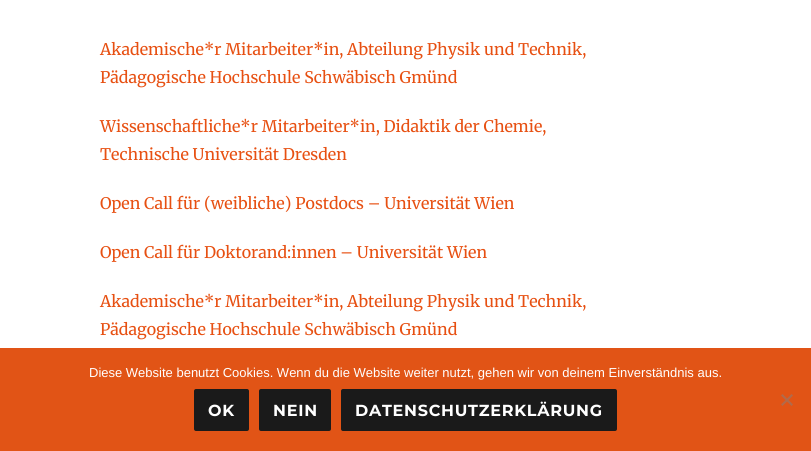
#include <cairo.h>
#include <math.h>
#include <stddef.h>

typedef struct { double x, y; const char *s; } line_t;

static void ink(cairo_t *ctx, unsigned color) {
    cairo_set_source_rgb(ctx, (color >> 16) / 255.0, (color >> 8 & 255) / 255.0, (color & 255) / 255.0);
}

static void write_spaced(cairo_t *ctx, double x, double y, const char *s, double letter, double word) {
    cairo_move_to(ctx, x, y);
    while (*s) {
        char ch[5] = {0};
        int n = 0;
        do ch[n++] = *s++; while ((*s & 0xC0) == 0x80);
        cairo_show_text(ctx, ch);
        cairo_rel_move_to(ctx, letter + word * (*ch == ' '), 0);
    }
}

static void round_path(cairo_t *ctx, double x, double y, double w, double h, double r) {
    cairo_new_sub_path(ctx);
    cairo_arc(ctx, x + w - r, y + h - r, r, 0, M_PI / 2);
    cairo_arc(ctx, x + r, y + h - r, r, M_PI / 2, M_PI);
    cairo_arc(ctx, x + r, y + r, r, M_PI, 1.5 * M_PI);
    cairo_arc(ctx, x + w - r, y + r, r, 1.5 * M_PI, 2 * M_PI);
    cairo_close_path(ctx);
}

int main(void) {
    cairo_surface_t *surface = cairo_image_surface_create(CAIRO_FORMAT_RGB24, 811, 451);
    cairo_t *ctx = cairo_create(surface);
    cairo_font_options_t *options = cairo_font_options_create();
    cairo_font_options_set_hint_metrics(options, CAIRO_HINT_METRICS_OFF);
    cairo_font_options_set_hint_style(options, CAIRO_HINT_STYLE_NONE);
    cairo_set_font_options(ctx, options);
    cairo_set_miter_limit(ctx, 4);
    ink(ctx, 0xFFFFFF);
    cairo_paint(ctx);
    cairo_select_font_face(ctx, "Merriweather", CAIRO_FONT_SLANT_NORMAL, CAIRO_FONT_WEIGHT_NORMAL);
    cairo_set_font_size(ctx, 16);
    ink(ctx, 0xE75012);
    {
        static const line_t items[] = {
            {100, 55, "Akademische*r Mitarbeiter*in, Abteilung Physik und Technik,"},
            {100, 83, "Pädagogische Hochschule Schwäbisch Gmünd"},
            {100, 132, "Wissenschaftliche*r Mitarbeiter*in, Didaktik der Chemie,"},
            {100, 160, "Technische Universität Dresden"},
            {100, 209, "Open Call für (weibliche) Postdocs – Universität Wien"},
            {100, 258, "Open Call für Doktorand:innen – Universität Wien"},
            {100, 307, "Akademische*r Mitarbeiter*in, Abteilung Physik und Technik,"},
            {100, 335, "Pädagogische Hochschule Schwäbisch Gmünd"},
        };
        for (size_t i = 0; i < sizeof items / sizeof *items; i++) {
            cairo_move_to(ctx, items[i].x, items[i].y);
            cairo_show_text(ctx, items[i].s);
        }
    }
    ink(ctx, 0xE15416);
    cairo_rectangle(ctx, 0, 348, 811, 103);
    cairo_fill(ctx);
    cairo_select_font_face(ctx, "Liberation Sans", CAIRO_FONT_SLANT_NORMAL, CAIRO_FONT_WEIGHT_NORMAL);
    cairo_set_font_size(ctx, 13);
    ink(ctx, 0xFFFFFF);
    cairo_move_to(ctx, 89, 377);
    cairo_show_text(ctx, "Diese Website benutzt Cookies. Wenn du die Website weiter nutzt, gehen wir von deinem Einverständnis aus.");
    ink(ctx, 0x1A1A1A);
    round_path(ctx, 194, 389, 55, 42, 2);
    cairo_fill(ctx);
    cairo_select_font_face(ctx, "Montserrat", CAIRO_FONT_SLANT_NORMAL, CAIRO_FONT_WEIGHT_BOLD);
    cairo_set_font_size(ctx, 16);
    ink(ctx, 0xFFFFFF);
    write_spaced(ctx, 208, 416, "OK", 0.75, 0);
    ink(ctx, 0x1A1A1A);
    round_path(ctx, 259, 389, 72, 42, 2);
    cairo_fill(ctx);
    ink(ctx, 0xFFFFFF);
    write_spaced(ctx, 273, 416, "NEIN", 0.75, 0);
    ink(ctx, 0x1A1A1A);
    round_path(ctx, 341, 389, 276, 42, 2);
    cairo_fill(ctx);
    ink(ctx, 0xFFFFFF);
    write_spaced(ctx, 355, 416, "DATENSCHUTZERKLÄRUNG", 0.75, 0);
    ink(ctx, 0xB16A4B);
    cairo_new_path(ctx);
    cairo_move_to(ctx, 791.5, 394);
    cairo_line_to(ctx, 793, 395.5);
    cairo_line_to(ctx, 782.5, 406);
    cairo_line_to(ctx, 781, 404.5);
    cairo_close_path(ctx);
    cairo_fill(ctx);
    cairo_new_path(ctx);
    cairo_move_to(ctx, 781, 395.5);
    cairo_line_to(ctx, 782.5, 394);
    cairo_line_to(ctx, 793, 404.5);
    cairo_line_to(ctx, 791.5, 406);
    cairo_close_path(ctx);
    cairo_fill(ctx);
    cairo_surface_write_to_png(surface, "image.png");
    cairo_font_options_destroy(options);
    cairo_destroy(ctx);
    cairo_surface_destroy(surface);
    return 0;
}
